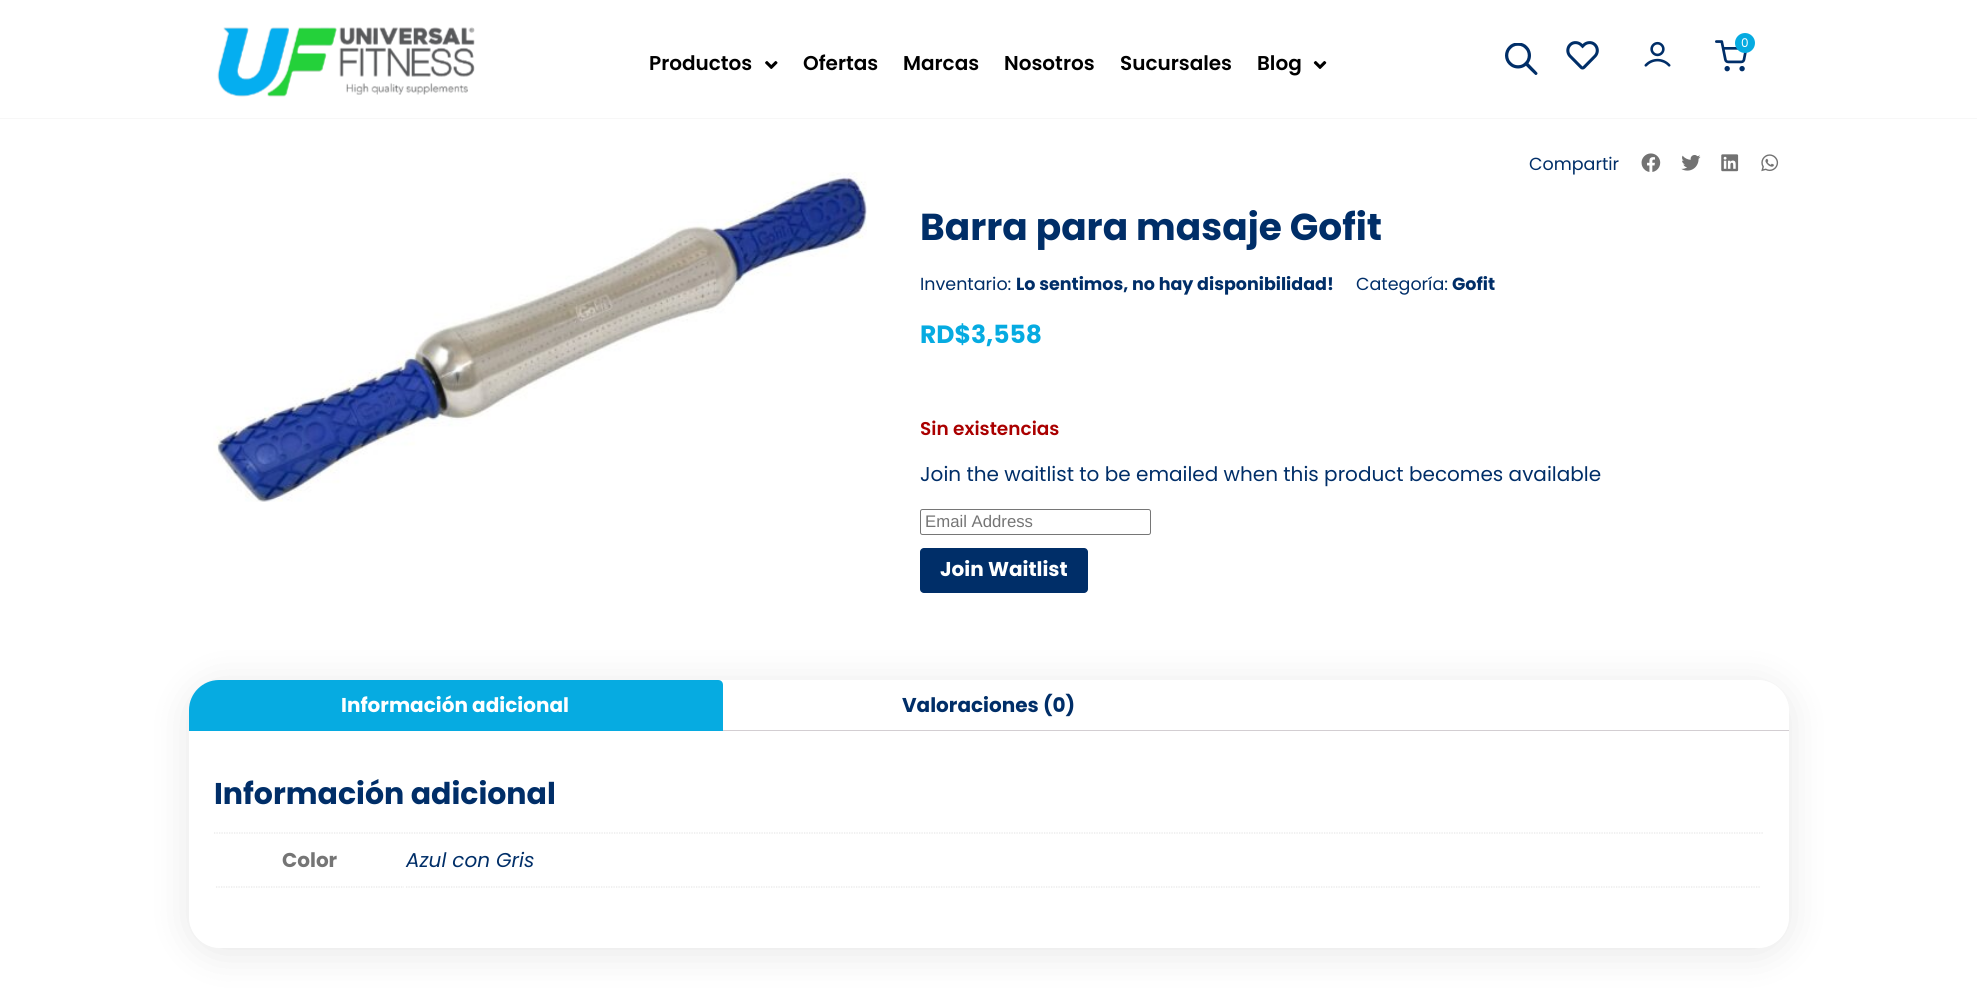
#include <cairo.h>
#include <math.h>
#include <stddef.h>

typedef struct { double x, y; const char *s; } line_t;

static void ink(cairo_t *ctx, unsigned color) {
    cairo_set_source_rgb(ctx, (color >> 16) / 255.0, (color >> 8 & 255) / 255.0, (color & 255) / 255.0);
}

static void round_path(cairo_t *ctx, double x, double y, double w, double h, double r) {
    cairo_new_sub_path(ctx);
    cairo_arc(ctx, x + w - r, y + h - r, r, 0, M_PI / 2);
    cairo_arc(ctx, x + r, y + h - r, r, M_PI / 2, M_PI);
    cairo_arc(ctx, x + r, y + r, r, M_PI, 1.5 * M_PI);
    cairo_arc(ctx, x + w - r, y + r, r, 1.5 * M_PI, 2 * M_PI);
    cairo_close_path(ctx);
}

static void blur_box(cairo_t *ctx, double x, double y, double w, double h, double r, double blur, double alpha) {
    cairo_push_group_with_content(ctx, CAIRO_CONTENT_ALPHA);
    cairo_set_operator(ctx, CAIRO_OPERATOR_SOURCE);
    for (int i = 15; i >= -15 && fmin(w, h) + blur * i / 3 > 0; i -= 2) {
        double e = blur * i / 6;
        cairo_set_source_rgba(ctx, 0, 0, 0, alpha * erfc((i - 1) / 8.5) / 2);
        round_path(ctx, x - e, y - e, w + 2 * e, h + 2 * e, fmax(0, fmin(r + e + blur * .6, fmin(w, h) / 2 + e)));
        cairo_fill(ctx);
    }
    cairo_pattern_t *soft = cairo_pop_group(ctx);
    cairo_mask(ctx, soft);
    cairo_pattern_destroy(soft);
}

static void paste(cairo_t *ctx, const char *path, double x, double y, double w, double h) {
    cairo_surface_t *image = cairo_image_surface_create_from_png(path);
    cairo_save(ctx);
    cairo_set_source_surface(ctx, image, x, y);
    cairo_rectangle(ctx, x, y, w, h);
    cairo_fill(ctx);
    cairo_restore(ctx);
    cairo_surface_destroy(image);
}

int main(void) {
    cairo_surface_t *surface = cairo_image_surface_create(CAIRO_FORMAT_RGB24, 1977, 996);
    cairo_t *ctx = cairo_create(surface);
    cairo_font_options_t *options = cairo_font_options_create();
    cairo_font_options_set_hint_metrics(options, CAIRO_HINT_METRICS_OFF);
    cairo_font_options_set_hint_style(options, CAIRO_HINT_STYLE_NONE);
    cairo_set_font_options(ctx, options);
    cairo_set_miter_limit(ctx, 4);
    ink(ctx, 0xFFFFFF);
    cairo_paint(ctx);
    ink(ctx, 0xF7F7F7);
    cairo_rectangle(ctx, 0, 118, 1977, 1);
    cairo_fill(ctx);
    paste(ctx, "media/1.png", 217, 27, 258, 70);
    paste(ctx, "media/2.png", 1505, 43, 33, 32);
    paste(ctx, "media/3.png", 1566, 41, 33, 29);
    paste(ctx, "media/4.png", 1644, 41, 27, 26);
    paste(ctx, "media/5.png", 1715, 40, 32, 32);
    ink(ctx, 0x06ABE1);
    cairo_arc(ctx, 1745, 43, 10, 0, 2 * M_PI);
    cairo_fill(ctx);
    cairo_select_font_face(ctx, "Poppins", CAIRO_FONT_SLANT_NORMAL, CAIRO_FONT_WEIGHT_NORMAL);
    cairo_set_font_size(ctx, 12);
    ink(ctx, 0xFFFFFF);
    cairo_move_to(ctx, 1741, 47);
    cairo_show_text(ctx, "0");
    cairo_select_font_face(ctx, "Poppins SemiBold", CAIRO_FONT_SLANT_NORMAL, CAIRO_FONT_WEIGHT_NORMAL);
    cairo_set_font_size(ctx, 20);
    ink(ctx, 0x000000);
    cairo_move_to(ctx, 649, 70);
    cairo_show_text(ctx, "Productos");
    paste(ctx, "media/6.png", 765, 61, 13, 8);
    {
        static const line_t items[] = {
            {803, 70, "Ofertas"},
            {903, 70, "Marcas"},
            {1004, 70, "Nosotros"},
            {1120, 70, "Sucursales"},
            {1257, 70, "Blog"},
        };
        for (size_t i = 0; i < sizeof items / sizeof *items; i++) {
            cairo_move_to(ctx, items[i].x, items[i].y);
            cairo_show_text(ctx, items[i].s);
        }
    }
    paste(ctx, "media/7.png", 1313, 61, 14, 8);
    paste(ctx, "media/8.png", 213, 172, 654, 330);
    cairo_select_font_face(ctx, "Poppins", CAIRO_FONT_SLANT_NORMAL, CAIRO_FONT_WEIGHT_NORMAL);
    cairo_set_font_size(ctx, 17.5);
    ink(ctx, 0x002E68);
    cairo_move_to(ctx, 1529, 170);
    cairo_show_text(ctx, "Compartir");
    paste(ctx, "media/9.png", 1641, 153, 20, 19);
    paste(ctx, "media/10.png", 1681, 155, 20, 16);
    paste(ctx, "media/11.png", 1721, 154, 18, 18);
    paste(ctx, "media/12.png", 1761, 154, 18, 18);
    cairo_select_font_face(ctx, "Poppins", CAIRO_FONT_SLANT_NORMAL, CAIRO_FONT_WEIGHT_BOLD);
    cairo_set_font_size(ctx, 37.5);
    cairo_move_to(ctx, 920, 240);
    cairo_show_text(ctx, "Barra para masaje Gofit");
    cairo_select_font_face(ctx, "Poppins", CAIRO_FONT_SLANT_NORMAL, CAIRO_FONT_WEIGHT_NORMAL);
    cairo_set_font_size(ctx, 17.5);
    cairo_move_to(ctx, 920, 290);
    cairo_show_text(ctx, "Inventario:");
    cairo_select_font_face(ctx, "Poppins", CAIRO_FONT_SLANT_NORMAL, CAIRO_FONT_WEIGHT_BOLD);
    cairo_move_to(ctx, 1016, 290);
    cairo_show_text(ctx, "Lo sentimos, no hay disponibilidad!");
    cairo_select_font_face(ctx, "Poppins", CAIRO_FONT_SLANT_NORMAL, CAIRO_FONT_WEIGHT_NORMAL);
    cairo_move_to(ctx, 1356, 290);
    cairo_show_text(ctx, "Categoría:");
    cairo_select_font_face(ctx, "Poppins", CAIRO_FONT_SLANT_NORMAL, CAIRO_FONT_WEIGHT_BOLD);
    cairo_move_to(ctx, 1452, 290);
    cairo_show_text(ctx, "Gofit");
    cairo_set_font_size(ctx, 25);
    ink(ctx, 0x06ABE1);
    cairo_move_to(ctx, 920, 343);
    cairo_show_text(ctx, "RD$3,558");
    cairo_select_font_face(ctx, "Poppins SemiBold", CAIRO_FONT_SLANT_NORMAL, CAIRO_FONT_WEIGHT_NORMAL);
    cairo_set_font_size(ctx, 18.5);
    ink(ctx, 0xAA0000);
    cairo_move_to(ctx, 920, 435);
    cairo_show_text(ctx, "Sin existencias");
    cairo_select_font_face(ctx, "Poppins", CAIRO_FONT_SLANT_NORMAL, CAIRO_FONT_WEIGHT_NORMAL);
    cairo_set_font_size(ctx, 20);
    ink(ctx, 0x002E68);
    cairo_move_to(ctx, 920, 481);
    cairo_show_text(ctx, "Join the waitlist to be emailed when this product becomes available");
    round_path(ctx, 920.5, 509.5, 230, 25, 2);
    ink(ctx, 0x767676);
    cairo_set_line_width(ctx, 1);
    cairo_stroke(ctx);
    cairo_select_font_face(ctx, "Liberation Sans", CAIRO_FONT_SLANT_NORMAL, CAIRO_FONT_WEIGHT_NORMAL);
    cairo_set_font_size(ctx, 16.75);
    ink(ctx, 0x757575);
    cairo_move_to(ctx, 925, 527);
    cairo_show_text(ctx, "Email Address");
    ink(ctx, 0x002E68);
    round_path(ctx, 920, 548, 168, 45, 4);
    cairo_fill(ctx);
    cairo_select_font_face(ctx, "Poppins", CAIRO_FONT_SLANT_NORMAL, CAIRO_FONT_WEIGHT_BOLD);
    cairo_set_font_size(ctx, 20);
    ink(ctx, 0xFFFFFF);
    cairo_move_to(ctx, 940, 576);
    cairo_show_text(ctx, "Join Waitlist");
    cairo_save(ctx);
    cairo_set_fill_rule(ctx, CAIRO_FILL_RULE_EVEN_ODD);
    cairo_new_path(ctx);
    cairo_move_to(ctx, 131, 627);
    cairo_line_to(ctx, 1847, 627);
    cairo_line_to(ctx, 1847, 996);
    cairo_line_to(ctx, 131, 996);
    cairo_close_path(ctx);
    cairo_move_to(ctx, 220, 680);
    cairo_line_to(ctx, 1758, 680);
    cairo_curve_to(ctx, 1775, 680, 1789, 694, 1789, 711);
    cairo_line_to(ctx, 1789, 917);
    cairo_curve_to(ctx, 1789, 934, 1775, 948, 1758, 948);
    cairo_line_to(ctx, 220, 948);
    cairo_curve_to(ctx, 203, 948, 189, 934, 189, 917);
    cairo_line_to(ctx, 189, 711);
    cairo_curve_to(ctx, 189, 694, 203, 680, 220, 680);
    cairo_close_path(ctx);
    cairo_clip(ctx);
    ink(ctx, 0x000000);
    blur_box(ctx, 189, 685, 1600, 268, 31, 19, 0.1);
    cairo_restore(ctx);
    ink(ctx, 0x06ABE1);
    cairo_new_path(ctx);
    cairo_move_to(ctx, 219, 680);
    cairo_line_to(ctx, 718, 680);
    cairo_curve_to(ctx, 721, 680, 723, 682, 723, 685);
    cairo_line_to(ctx, 723, 731);
    cairo_line_to(ctx, 189, 731);
    cairo_line_to(ctx, 189, 710);
    cairo_curve_to(ctx, 189, 693.5, 202.5, 680, 219, 680);
    cairo_close_path(ctx);
    cairo_fill(ctx);
    ink(ctx, 0xFFFFFF);
    cairo_move_to(ctx, 341, 712);
    cairo_show_text(ctx, "Información adicional");
    ink(ctx, 0x002E68);
    cairo_move_to(ctx, 902, 712);
    cairo_show_text(ctx, "Valoraciones (0)");
    ink(ctx, 0xD3CED2);
    cairo_rectangle(ctx, 723, 730, 1066, 1);
    cairo_fill(ctx);
    cairo_set_font_size(ctx, 30);
    ink(ctx, 0x002E68);
    cairo_move_to(ctx, 214, 804);
    cairo_show_text(ctx, "Información adicional");
    cairo_new_path(ctx);
    cairo_move_to(ctx, 214, 833);
    cairo_line_to(ctx, 1764, 833);
    ink(ctx, 0xE6E6E6);
    cairo_set_line_width(ctx, 1.2);
    cairo_set_dash(ctx, (double[]){1.25, 1.25}, 2, 0);
    cairo_stroke(ctx);
    cairo_new_path(ctx);
    cairo_move_to(ctx, 216, 887);
    cairo_line_to(ctx, 404, 887);
    cairo_stroke(ctx);
    cairo_set_font_size(ctx, 20);
    ink(ctx, 0x757575);
    cairo_move_to(ctx, 282, 867);
    cairo_show_text(ctx, "Color");
    cairo_new_path(ctx);
    cairo_move_to(ctx, 406, 887);
    cairo_line_to(ctx, 1761, 887);
    ink(ctx, 0xE6E6E6);
    cairo_stroke(ctx);
    cairo_select_font_face(ctx, "Poppins", CAIRO_FONT_SLANT_ITALIC, CAIRO_FONT_WEIGHT_NORMAL);
    ink(ctx, 0x002E68);
    cairo_move_to(ctx, 406, 867);
    cairo_show_text(ctx, "Azul con Gris");
    cairo_surface_write_to_png(surface, "image.png");
    cairo_font_options_destroy(options);
    cairo_destroy(ctx);
    cairo_surface_destroy(surface);
    return 0;
}
